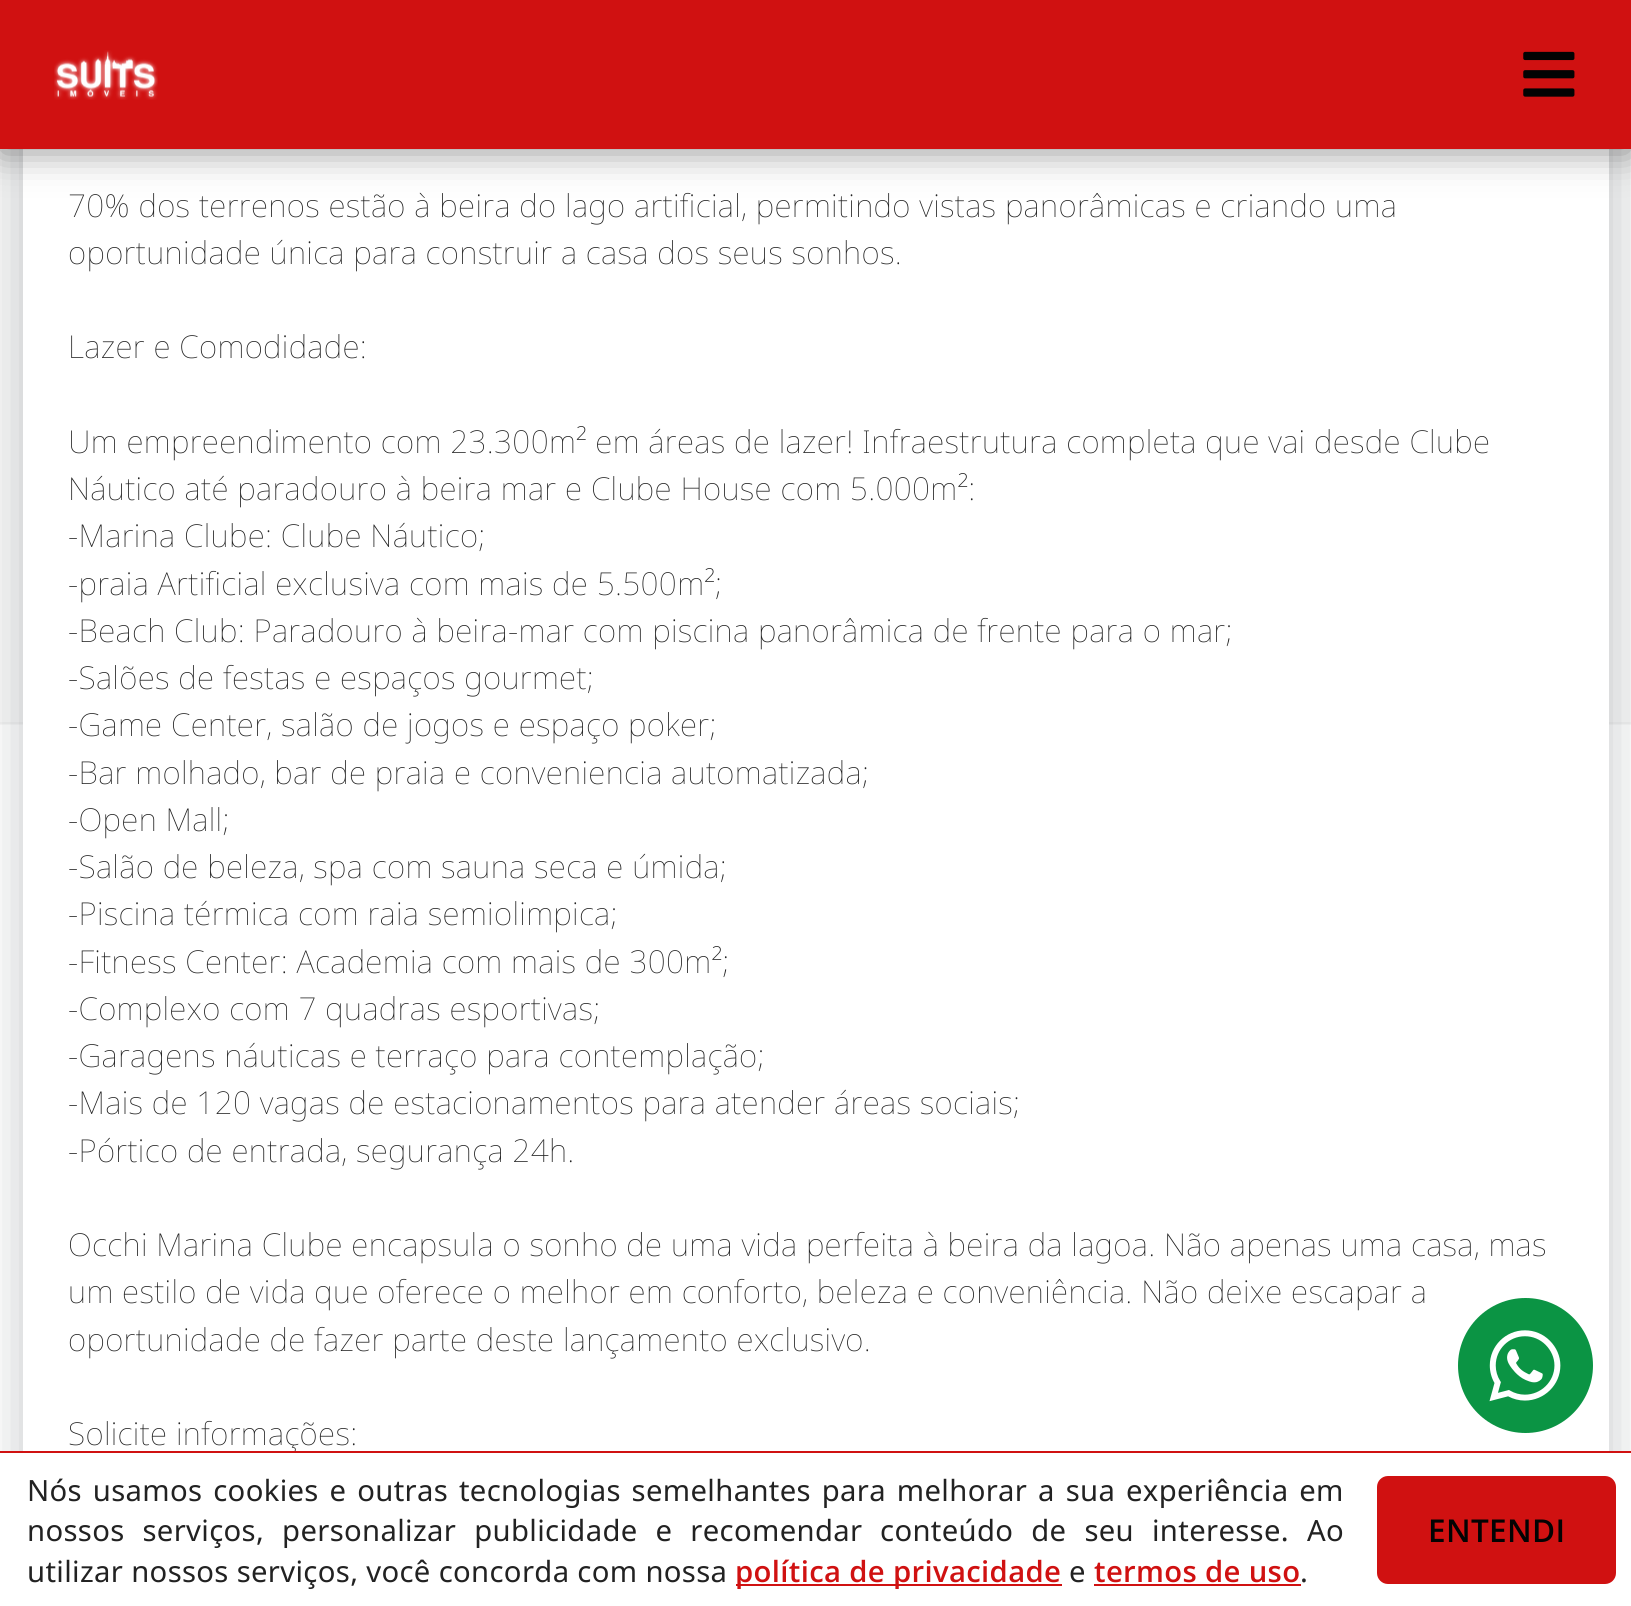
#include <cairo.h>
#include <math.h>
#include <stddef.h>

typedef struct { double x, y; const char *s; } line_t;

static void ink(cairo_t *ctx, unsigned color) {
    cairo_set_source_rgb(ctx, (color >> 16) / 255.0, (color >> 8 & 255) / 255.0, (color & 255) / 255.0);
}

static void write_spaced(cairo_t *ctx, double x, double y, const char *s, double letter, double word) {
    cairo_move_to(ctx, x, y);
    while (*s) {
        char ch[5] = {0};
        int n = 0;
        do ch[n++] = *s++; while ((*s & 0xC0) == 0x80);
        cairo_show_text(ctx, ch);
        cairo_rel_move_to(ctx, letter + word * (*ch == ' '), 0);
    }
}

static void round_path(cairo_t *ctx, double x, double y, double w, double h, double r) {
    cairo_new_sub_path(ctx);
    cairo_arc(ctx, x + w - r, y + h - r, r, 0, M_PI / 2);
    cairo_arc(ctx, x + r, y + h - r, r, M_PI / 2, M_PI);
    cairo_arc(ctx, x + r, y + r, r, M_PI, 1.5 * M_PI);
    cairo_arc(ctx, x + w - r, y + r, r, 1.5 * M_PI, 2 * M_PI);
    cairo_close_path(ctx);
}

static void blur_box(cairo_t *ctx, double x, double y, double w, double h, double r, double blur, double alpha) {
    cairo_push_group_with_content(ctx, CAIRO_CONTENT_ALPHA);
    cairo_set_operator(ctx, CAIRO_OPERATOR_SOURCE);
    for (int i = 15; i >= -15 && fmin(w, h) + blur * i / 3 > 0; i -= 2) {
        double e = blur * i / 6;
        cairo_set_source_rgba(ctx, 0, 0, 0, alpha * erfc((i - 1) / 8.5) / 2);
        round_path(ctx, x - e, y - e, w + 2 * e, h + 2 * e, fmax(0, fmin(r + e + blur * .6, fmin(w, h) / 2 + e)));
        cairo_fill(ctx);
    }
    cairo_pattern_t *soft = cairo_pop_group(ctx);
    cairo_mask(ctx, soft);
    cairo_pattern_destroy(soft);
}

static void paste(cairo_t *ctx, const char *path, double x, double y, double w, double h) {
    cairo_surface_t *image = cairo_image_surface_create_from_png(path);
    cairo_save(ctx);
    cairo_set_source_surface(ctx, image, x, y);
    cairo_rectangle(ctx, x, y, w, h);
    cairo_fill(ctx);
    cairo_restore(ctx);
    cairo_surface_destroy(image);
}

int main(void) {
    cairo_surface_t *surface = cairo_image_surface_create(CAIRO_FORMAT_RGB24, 1631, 1606);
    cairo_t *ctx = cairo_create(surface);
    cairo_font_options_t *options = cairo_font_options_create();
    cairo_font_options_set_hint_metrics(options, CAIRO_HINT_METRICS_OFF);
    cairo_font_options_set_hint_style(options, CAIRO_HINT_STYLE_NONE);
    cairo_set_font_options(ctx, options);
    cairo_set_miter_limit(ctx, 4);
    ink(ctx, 0xFFFFFF);
    cairo_paint(ctx);
    ink(ctx, 0xF8F8F8);
    cairo_rectangle(ctx, 0, 149, 1631, 576);
    cairo_fill(ctx);
    ink(ctx, 0xF1F1F1);
    cairo_rectangle(ctx, 0, 722, 1631, 2);
    cairo_fill(ctx);
    ink(ctx, 0x3B4047);
    blur_box(ctx, 23, -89, 1586, 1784, 14, 25, 0.3);
    ink(ctx, 0xFFFFFF);
    cairo_rectangle(ctx, 23, 149, 1586, 1302);
    cairo_fill(ctx);
    ink(ctx, 0x000000);
    blur_box(ctx, 0, 5, 1631, 148, 0, 18, 0.4);
    ink(ctx, 0xD01111);
    cairo_rectangle(ctx, 0, 0, 1631, 149);
    cairo_fill(ctx);
    paste(ctx, "media/1.png", 54, 50, 104, 50);
    paste(ctx, "media/2.png", 1523, 51, 52, 46);
    cairo_select_font_face(ctx, "Noto Sans Thin", CAIRO_FONT_SLANT_NORMAL, CAIRO_FONT_WEIGHT_NORMAL);
    cairo_set_font_size(ctx, 31.5);
    ink(ctx, 0x222222);
    {
        static const line_t items[] = {
            {68, 217, "70% dos terrenos estão à beira do lago artificial, permitindo vistas panorâmicas e criando uma"},
            {68, 264, "oportunidade única para construir a casa dos seus sonhos."},
            {68, 358, "Lazer e Comodidade:"},
            {68, 453, "Um empreendimento com 23.300m² em áreas de lazer! Infraestrutura completa que vai desde Clube"},
            {68, 500, "Náutico até paradouro à beira mar e Clube House com 5.000m²:"},
            {68, 547, "-Marina Clube: Clube Náutico;"},
            {68, 595, "-praia Artificial exclusiva com mais de 5.500m²;"},
            {68, 642, "-Beach Club: Paradouro à beira-mar com piscina panorâmica de frente para o mar;"},
            {68, 689, "-Salões de festas e espaços gourmet;"},
            {68, 736, "-Game Center, salão de jogos e espaço poker;"},
            {68, 784, "-Bar molhado, bar de praia e conveniencia automatizada;"},
            {68, 831, "-Open Mall;"},
            {68, 878, "-Salão de beleza, spa com sauna seca e úmida;"},
            {68, 925, "-Piscina térmica com raia semiolimpica;"},
            {68, 973, "-Fitness Center: Academia com mais de 300m²;"},
            {68, 1020, "-Complexo com 7 quadras esportivas;"},
            {68, 1067, "-Garagens náuticas e terraço para contemplação;"},
            {68, 1114, "-Mais de 120 vagas de estacionamentos para atender áreas sociais;"},
            {68, 1162, "-Pórtico de entrada, segurança 24h."},
            {68, 1256, "Occhi Marina Clube encapsula o sonho de uma vida perfeita à beira da lagoa. Não apenas uma casa, mas"},
            {68, 1303, "um estilo de vida que oferece o melhor em conforto, beleza e conveniência. Não deixe escapar a"},
            {68, 1351, "oportunidade de fazer parte deste lançamento exclusivo."},
            {68, 1445, "Solicite informações:"},
        };
        for (size_t i = 0; i < sizeof items / sizeof *items; i++) {
            write_spaced(ctx, items[i].x, items[i].y, items[i].s, 0.34, 0);
        }
    }
    ink(ctx, 0x0B9444);
    cairo_new_path(ctx);
    cairo_arc(ctx, 1525.5, 1365.5, 67.5, 0, 2 * M_PI);
    cairo_fill(ctx);
    paste(ctx, "media/3.png", 1489, 1330, 72, 72);
    ink(ctx, 0xFFFFFF);
    cairo_rectangle(ctx, 0, 1453, 1631, 153);
    cairo_fill(ctx);
    ink(ctx, 0xD01111);
    cairo_rectangle(ctx, 0, 1451, 1631, 2);
    cairo_fill(ctx);
    cairo_select_font_face(ctx, "Noto Sans", CAIRO_FONT_SLANT_NORMAL, CAIRO_FONT_WEIGHT_NORMAL);
    cairo_set_font_size(ctx, 29.25);
    ink(ctx, 0x222222);
    write_spaced(ctx, 27, 1501, "Nós usamos cookies e outras tecnologias semelhantes para melhorar a sua", 0.34, 2.9);
    write_spaced(ctx, 1126, 1501, "experiência em", 0.34, 2.9);
    write_spaced(ctx, 27, 1541, "nossos serviços, personalizar publicidade e recomendar", 0.34, 10);
    write_spaced(ctx, 880, 1541, "conteúdo de seu interesse. Ao", 0.34, 10);
    write_spaced(ctx, 27, 1582, "utilizar nossos serviços, você concorda com nossa", 0.34, 0);
    ink(ctx, 0xD01111);
    cairo_rectangle(ctx, 736, 1584, 326, 2);
    cairo_fill(ctx);
    cairo_select_font_face(ctx, "Open Sans SemiBold", CAIRO_FONT_SLANT_NORMAL, CAIRO_FONT_WEIGHT_NORMAL);
    write_spaced(ctx, 735, 1582, "política de privacidade", 0.34, 0);
    cairo_select_font_face(ctx, "Noto Sans", CAIRO_FONT_SLANT_NORMAL, CAIRO_FONT_WEIGHT_NORMAL);
    ink(ctx, 0x222222);
    write_spaced(ctx, 1069, 1582, "e", 0.34, 0);
    cairo_select_font_face(ctx, "Open Sans SemiBold", CAIRO_FONT_SLANT_NORMAL, CAIRO_FONT_WEIGHT_NORMAL);
    ink(ctx, 0xD01111);
    write_spaced(ctx, 1094, 1582, "termos de uso", 0.34, 0);
    cairo_rectangle(ctx, 1094, 1584, 207, 2);
    cairo_fill(ctx);
    cairo_select_font_face(ctx, "Noto Sans", CAIRO_FONT_SLANT_NORMAL, CAIRO_FONT_WEIGHT_NORMAL);
    ink(ctx, 0x222222);
    write_spaced(ctx, 1300, 1582, ".", 0.34, 0);
    ink(ctx, 0xD01111);
    round_path(ctx, 1377, 1476, 239, 108, 11);
    cairo_fill(ctx);
    cairo_select_font_face(ctx, "Open Sans SemiBold", CAIRO_FONT_SLANT_NORMAL, CAIRO_FONT_WEIGHT_NORMAL);
    cairo_set_font_size(ctx, 31.5);
    ink(ctx, 0x030303);
    write_spaced(ctx, 1428, 1542, "ENTENDI", 0.34, 0);
    cairo_surface_write_to_png(surface, "image.png");
    cairo_font_options_destroy(options);
    cairo_destroy(ctx);
    cairo_surface_destroy(surface);
    return 0;
}
